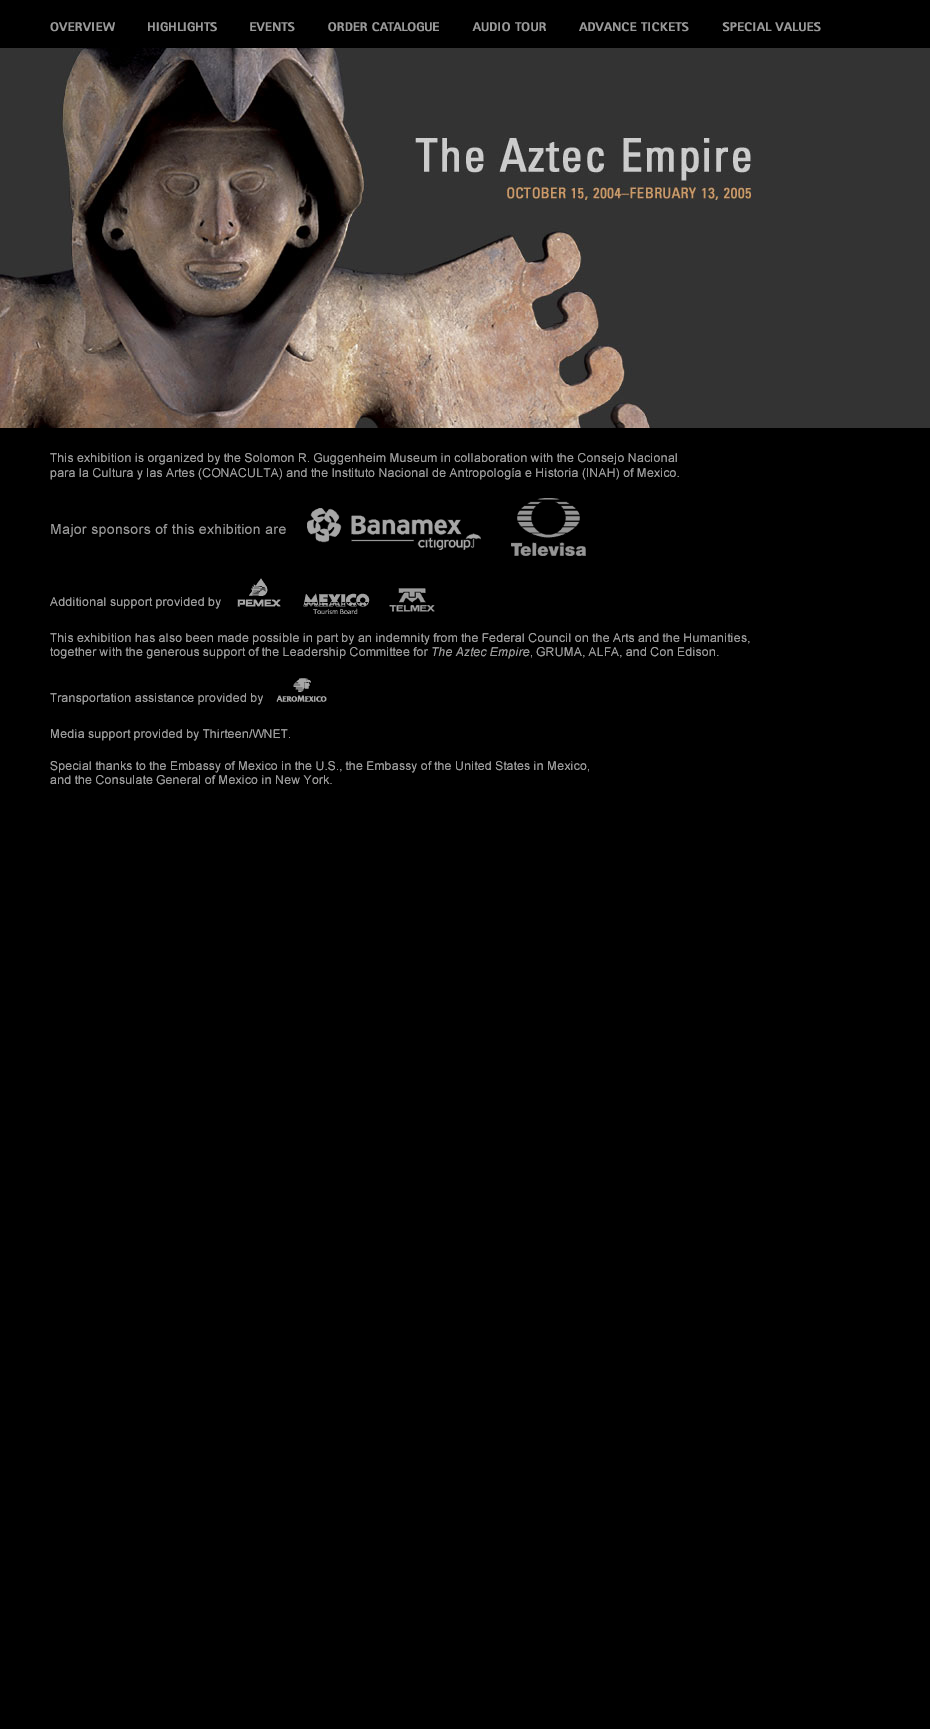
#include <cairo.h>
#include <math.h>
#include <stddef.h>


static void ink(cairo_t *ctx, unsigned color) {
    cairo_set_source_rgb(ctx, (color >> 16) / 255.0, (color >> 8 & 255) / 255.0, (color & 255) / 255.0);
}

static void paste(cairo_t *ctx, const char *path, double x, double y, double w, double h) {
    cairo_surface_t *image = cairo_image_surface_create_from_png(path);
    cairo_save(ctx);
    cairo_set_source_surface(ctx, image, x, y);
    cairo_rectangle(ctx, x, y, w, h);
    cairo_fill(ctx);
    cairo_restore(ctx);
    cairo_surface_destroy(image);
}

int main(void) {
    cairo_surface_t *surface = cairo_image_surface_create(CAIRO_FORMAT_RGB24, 930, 1729);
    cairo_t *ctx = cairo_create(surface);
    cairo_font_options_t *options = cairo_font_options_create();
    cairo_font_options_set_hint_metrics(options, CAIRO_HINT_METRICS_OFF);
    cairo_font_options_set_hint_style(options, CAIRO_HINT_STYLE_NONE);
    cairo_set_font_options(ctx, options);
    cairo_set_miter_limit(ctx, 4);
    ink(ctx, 0x000000);
    cairo_paint(ctx);
    paste(ctx, "media/1.png", 50, 22, 65, 10);
    paste(ctx, "media/2.png", 148, 22, 69, 10);
    paste(ctx, "media/3.png", 250, 22, 45, 10);
    paste(ctx, "media/4.png", 328, 22, 111, 10);
    paste(ctx, "media/5.png", 472, 22, 74, 10);
    paste(ctx, "media/6.png", 579, 22, 110, 10);
    paste(ctx, "media/7.png", 722, 22, 99, 10);
    ink(ctx, 0x333333);
    cairo_rectangle(ctx, 752, 48, 178, 380);
    cairo_fill(ctx);
    paste(ctx, "media/8.png", 0, 48, 752, 380);
    paste(ctx, "media/9.png", 50, 453, 629, 27);
    paste(ctx, "media/10.png", 51, 524, 235, 13);
    paste(ctx, "media/11.png", 307, 508, 174, 42);
    paste(ctx, "media/12.png", 511, 498, 75, 58);
    paste(ctx, "media/13.png", 50, 578, 700, 207);
    cairo_surface_write_to_png(surface, "image.png");
    cairo_font_options_destroy(options);
    cairo_destroy(ctx);
    cairo_surface_destroy(surface);
    return 0;
}
